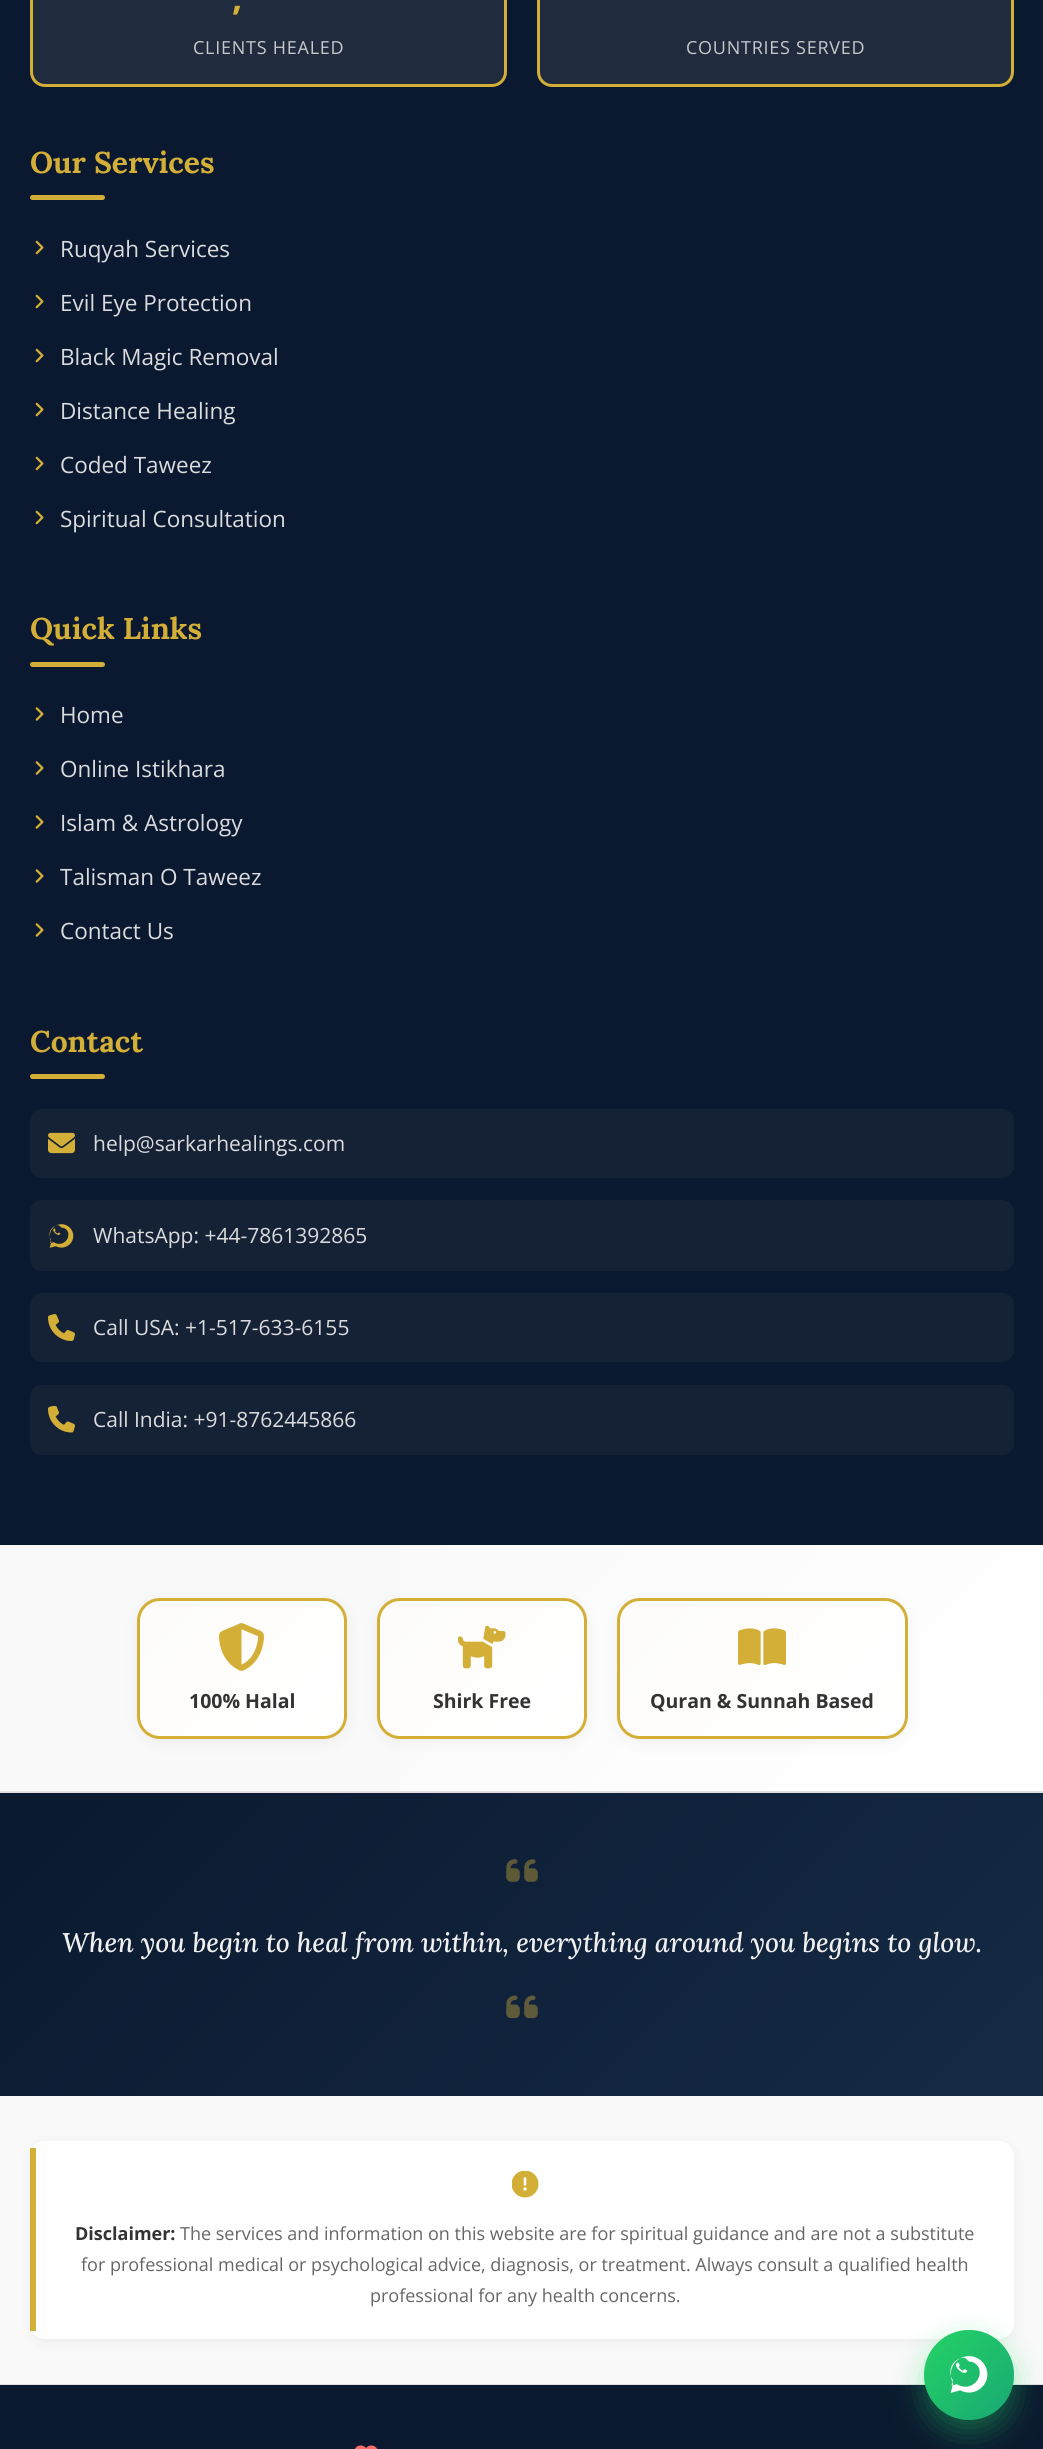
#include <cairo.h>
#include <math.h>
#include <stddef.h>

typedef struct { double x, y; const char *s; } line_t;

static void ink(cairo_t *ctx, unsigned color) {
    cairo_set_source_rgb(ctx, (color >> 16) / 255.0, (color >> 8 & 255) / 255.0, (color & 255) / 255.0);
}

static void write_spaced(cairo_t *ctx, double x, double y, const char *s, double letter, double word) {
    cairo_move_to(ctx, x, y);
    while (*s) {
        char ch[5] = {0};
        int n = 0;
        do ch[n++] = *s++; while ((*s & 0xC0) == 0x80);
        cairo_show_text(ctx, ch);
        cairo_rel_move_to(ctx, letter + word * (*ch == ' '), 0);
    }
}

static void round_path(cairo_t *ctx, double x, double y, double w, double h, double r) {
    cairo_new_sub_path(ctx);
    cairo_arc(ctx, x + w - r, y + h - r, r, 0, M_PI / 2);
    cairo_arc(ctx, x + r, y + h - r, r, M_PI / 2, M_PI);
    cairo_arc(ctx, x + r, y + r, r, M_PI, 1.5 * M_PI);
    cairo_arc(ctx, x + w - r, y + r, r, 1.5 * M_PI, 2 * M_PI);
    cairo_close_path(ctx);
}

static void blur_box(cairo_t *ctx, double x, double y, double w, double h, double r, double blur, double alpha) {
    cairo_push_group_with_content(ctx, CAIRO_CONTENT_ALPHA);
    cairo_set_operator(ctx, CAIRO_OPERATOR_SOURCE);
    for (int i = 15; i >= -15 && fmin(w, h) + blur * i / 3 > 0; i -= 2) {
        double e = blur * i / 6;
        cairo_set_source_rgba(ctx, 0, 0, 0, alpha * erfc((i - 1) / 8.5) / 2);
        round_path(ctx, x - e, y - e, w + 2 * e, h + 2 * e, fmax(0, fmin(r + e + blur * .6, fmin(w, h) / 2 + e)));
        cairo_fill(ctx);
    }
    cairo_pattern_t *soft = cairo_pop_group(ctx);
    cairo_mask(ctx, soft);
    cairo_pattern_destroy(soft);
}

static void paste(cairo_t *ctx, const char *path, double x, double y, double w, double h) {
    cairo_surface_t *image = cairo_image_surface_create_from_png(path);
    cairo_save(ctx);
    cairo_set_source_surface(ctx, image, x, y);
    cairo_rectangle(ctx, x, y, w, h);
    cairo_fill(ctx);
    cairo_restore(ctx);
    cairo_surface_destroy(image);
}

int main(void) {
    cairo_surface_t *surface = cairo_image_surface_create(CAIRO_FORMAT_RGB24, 1043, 2449);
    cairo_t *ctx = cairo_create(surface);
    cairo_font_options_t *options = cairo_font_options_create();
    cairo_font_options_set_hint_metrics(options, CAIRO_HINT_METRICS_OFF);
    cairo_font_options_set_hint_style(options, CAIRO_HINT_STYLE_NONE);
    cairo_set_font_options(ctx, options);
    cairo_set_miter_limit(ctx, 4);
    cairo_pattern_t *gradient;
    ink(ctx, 0xF9F9F9);
    cairo_paint(ctx);
    ink(ctx, 0x0A192F);
    cairo_rectangle(ctx, 0, 0, 1043, 1545);
    cairo_fill(ctx);
    ink(ctx, 0x202C3E);
    round_path(ctx, 31.5, -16.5, 474, 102, 13.5);
    cairo_fill_preserve(ctx);
    ink(ctx, 0xD4AF37);
    cairo_set_line_width(ctx, 3);
    cairo_stroke(ctx);
    cairo_select_font_face(ctx, "Open Sans", CAIRO_FONT_SLANT_NORMAL, CAIRO_FONT_WEIGHT_BOLD);
    cairo_set_font_size(ctx, 36);
    cairo_move_to(ctx, 232, 10);
    cairo_show_text(ctx, ",");
    cairo_select_font_face(ctx, "Open Sans", CAIRO_FONT_SLANT_NORMAL, CAIRO_FONT_WEIGHT_NORMAL);
    cairo_set_font_size(ctx, 18);
    ink(ctx, 0xC6C9CC);
    write_spaced(ctx, 193, 54, "CLIENTS HEALED", 0.75, 0);
    ink(ctx, 0x202C3E);
    round_path(ctx, 538.5, -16.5, 474, 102, 13.5);
    cairo_fill_preserve(ctx);
    ink(ctx, 0xD4AF37);
    cairo_stroke(ctx);
    ink(ctx, 0xC6C9CC);
    write_spaced(ctx, 686, 54, "COUNTRIES SERVED", 0.75, 0);
    cairo_select_font_face(ctx, "Lora", CAIRO_FONT_SLANT_NORMAL, CAIRO_FONT_WEIGHT_BOLD);
    cairo_set_font_size(ctx, 30);
    ink(ctx, 0xD4AF37);
    cairo_move_to(ctx, 30, 173);
    cairo_show_text(ctx, "Our Services");
    round_path(ctx, 30, 195, 75, 5, 2.5);
    cairo_fill(ctx);
    paste(ctx, "media/1.png", 35, 240, 9, 15);
    cairo_select_font_face(ctx, "Open Sans", CAIRO_FONT_SLANT_NORMAL, CAIRO_FONT_WEIGHT_NORMAL);
    cairo_set_font_size(ctx, 22.5);
    ink(ctx, 0xD9DBDD);
    cairo_move_to(ctx, 60, 257);
    cairo_show_text(ctx, "Ruqyah Services");
    paste(ctx, "media/1.png", 35, 294, 9, 15);
    cairo_move_to(ctx, 60, 311);
    cairo_show_text(ctx, "Evil Eye Protection");
    paste(ctx, "media/1.png", 35, 348, 9, 15);
    cairo_move_to(ctx, 60, 365);
    cairo_show_text(ctx, "Black Magic Removal");
    paste(ctx, "media/1.png", 35, 402, 9, 15);
    cairo_move_to(ctx, 60, 419);
    cairo_show_text(ctx, "Distance Healing");
    paste(ctx, "media/1.png", 35, 456, 9, 15);
    cairo_move_to(ctx, 60, 473);
    cairo_show_text(ctx, "Coded Taweez");
    paste(ctx, "media/1.png", 35, 510, 9, 15);
    cairo_move_to(ctx, 60, 527);
    cairo_show_text(ctx, "Spiritual Consultation");
    cairo_select_font_face(ctx, "Lora", CAIRO_FONT_SLANT_NORMAL, CAIRO_FONT_WEIGHT_BOLD);
    cairo_set_font_size(ctx, 30);
    ink(ctx, 0xD4AF37);
    cairo_move_to(ctx, 30, 639);
    cairo_show_text(ctx, "Quick Links");
    round_path(ctx, 30, 662, 75, 5, 2.5);
    cairo_fill(ctx);
    paste(ctx, "media/2.png", 35, 707, 9, 14);
    cairo_select_font_face(ctx, "Open Sans", CAIRO_FONT_SLANT_NORMAL, CAIRO_FONT_WEIGHT_NORMAL);
    cairo_set_font_size(ctx, 22.5);
    ink(ctx, 0xD9DBDD);
    cairo_move_to(ctx, 60, 723);
    cairo_show_text(ctx, "Home");
    paste(ctx, "media/2.png", 35, 761, 9, 14);
    cairo_move_to(ctx, 60, 777);
    cairo_show_text(ctx, "Online Istikhara");
    paste(ctx, "media/2.png", 35, 815, 9, 14);
    cairo_move_to(ctx, 60, 831);
    cairo_show_text(ctx, "Islam & Astrology");
    paste(ctx, "media/2.png", 35, 869, 9, 14);
    cairo_move_to(ctx, 60, 885);
    cairo_show_text(ctx, "Talisman O Taweez");
    paste(ctx, "media/2.png", 35, 923, 9, 14);
    cairo_move_to(ctx, 60, 939);
    cairo_show_text(ctx, "Contact Us");
    cairo_select_font_face(ctx, "Lora", CAIRO_FONT_SLANT_NORMAL, CAIRO_FONT_WEIGHT_BOLD);
    cairo_set_font_size(ctx, 30);
    ink(ctx, 0xD4AF37);
    cairo_move_to(ctx, 30, 1052);
    cairo_show_text(ctx, "Contact");
    round_path(ctx, 30, 1074, 75, 5, 2.5);
    cairo_fill(ctx);
    ink(ctx, 0x152236);
    round_path(ctx, 30, 1109, 984, 69, 12);
    cairo_fill(ctx);
    paste(ctx, "media/3.png", 48, 1132, 27, 22);
    cairo_select_font_face(ctx, "Open Sans", CAIRO_FONT_SLANT_NORMAL, CAIRO_FONT_WEIGHT_NORMAL);
    cairo_set_font_size(ctx, 21);
    ink(ctx, 0xD9DBDD);
    cairo_move_to(ctx, 93, 1151);
    cairo_show_text(ctx, "help@sarkarhealings.com");
    ink(ctx, 0x152236);
    round_path(ctx, 30, 1200, 984, 71, 12);
    cairo_fill(ctx);
    paste(ctx, "media/4.png", 49, 1224, 25, 24);
    ink(ctx, 0xD9DBDD);
    cairo_move_to(ctx, 93, 1243);
    cairo_show_text(ctx, "WhatsApp: +44-7861392865");
    ink(ctx, 0x152236);
    round_path(ctx, 30, 1293, 984, 69, 12);
    cairo_fill(ctx);
    paste(ctx, "media/5.png", 48, 1314, 27, 27);
    ink(ctx, 0xD9DBDD);
    cairo_move_to(ctx, 93, 1335);
    cairo_show_text(ctx, "Call USA: +1-517-633-6155");
    ink(ctx, 0x152236);
    round_path(ctx, 30, 1385, 984, 70, 12);
    cairo_fill(ctx);
    paste(ctx, "media/6.png", 48, 1406, 27, 27);
    ink(ctx, 0xD9DBDD);
    cairo_move_to(ctx, 93, 1427);
    cairo_show_text(ctx, "Call India: +91-8762445866");
    gradient = cairo_pattern_create_linear(199, 1346, 845, 1991);
    cairo_pattern_add_color_stop_rgba(gradient, 0, 0.973, 0.973, 0.973, 1);
    cairo_pattern_add_color_stop_rgba(gradient, 1, 1, 1, 1, 1);
    cairo_set_source(ctx, gradient);
    cairo_pattern_destroy(gradient);
    cairo_rectangle(ctx, 400, 1545, 643, 246);
    cairo_fill(ctx);
    ink(ctx, 0xE0E0E0);
    cairo_rectangle(ctx, 0, 1791, 1043, 2);
    cairo_fill(ctx);
    ink(ctx, 0x000000);
    blur_box(ctx, 137, 1602, 210, 141, 23, 7.5, 0.05);
    cairo_save(ctx);
    round_path(ctx, 137, 1598, 210, 141, 23);
    cairo_clip(ctx);
    gradient = cairo_pattern_create_linear(157, 1583, 326, 1753);
    cairo_pattern_add_color_stop_rgba(gradient, 0, 0.992, 0.988, 0.98, 1);
    cairo_pattern_add_color_stop_rgba(gradient, 1, 1, 1, 1, 1);
    cairo_set_source(ctx, gradient);
    cairo_pattern_destroy(gradient);
    cairo_rectangle(ctx, 140, 1601, 204, 135);
    cairo_fill(ctx);
    cairo_restore(ctx);
    round_path(ctx, 138.5, 1599.5, 207, 138, 21.5);
    ink(ctx, 0xD4AF37);
    cairo_stroke(ctx);
    paste(ctx, "media/7.png", 219, 1623, 45, 48);
    cairo_select_font_face(ctx, "Open Sans", CAIRO_FONT_SLANT_NORMAL, CAIRO_FONT_WEIGHT_BOLD);
    cairo_set_font_size(ctx, 19.5);
    ink(ctx, 0x333333);
    cairo_move_to(ctx, 189, 1708);
    cairo_show_text(ctx, "100% Halal");
    ink(ctx, 0x000000);
    blur_box(ctx, 377, 1602, 210, 141, 23, 7.5, 0.05);
    cairo_save(ctx);
    round_path(ctx, 377, 1598, 210, 141, 23);
    cairo_clip(ctx);
    gradient = cairo_pattern_create_linear(397, 1583, 566, 1753);
    cairo_pattern_add_color_stop_rgba(gradient, 0, 0.992, 0.988, 0.98, 1);
    cairo_pattern_add_color_stop_rgba(gradient, 1, 1, 1, 1, 1);
    cairo_set_source(ctx, gradient);
    cairo_pattern_destroy(gradient);
    cairo_rectangle(ctx, 380, 1601, 204, 135);
    cairo_fill(ctx);
    cairo_restore(ctx);
    round_path(ctx, 378.5, 1599.5, 207, 138, 21.5);
    ink(ctx, 0xD4AF37);
    cairo_stroke(ctx);
    paste(ctx, "media/8.png", 458, 1625, 48, 44);
    ink(ctx, 0x333333);
    cairo_move_to(ctx, 433, 1708);
    cairo_show_text(ctx, "Shirk Free");
    ink(ctx, 0x000000);
    blur_box(ctx, 617, 1602, 291, 141, 23, 7.5, 0.05);
    cairo_save(ctx);
    round_path(ctx, 617, 1598, 291, 141, 23);
    cairo_clip(ctx);
    gradient = cairo_pattern_create_linear(657, 1563, 867, 1773);
    cairo_pattern_add_color_stop_rgba(gradient, 0, 0.992, 0.988, 0.98, 1);
    cairo_pattern_add_color_stop_rgba(gradient, 1, 1, 1, 1, 1);
    cairo_set_source(ctx, gradient);
    cairo_pattern_destroy(gradient);
    cairo_rectangle(ctx, 620, 1601, 285, 135);
    cairo_fill(ctx);
    cairo_restore(ctx);
    round_path(ctx, 618.5, 1599.5, 288, 138, 21.5);
    ink(ctx, 0xD4AF37);
    cairo_stroke(ctx);
    paste(ctx, "media/9.png", 738, 1628, 48, 37);
    ink(ctx, 0x333333);
    cairo_move_to(ctx, 650, 1708);
    cairo_show_text(ctx, "Quran & Sunnah Based");
    gradient = cairo_pattern_create_linear(185, 1607, 859, 2281);
    cairo_pattern_add_color_stop_rgba(gradient, 0, 0.039, 0.098, 0.184, 1);
    cairo_pattern_add_color_stop_rgba(gradient, 1, 0.086, 0.165, 0.271, 1);
    cairo_set_source(ctx, gradient);
    cairo_pattern_destroy(gradient);
    cairo_rectangle(ctx, 0, 1793, 1043, 303);
    cairo_fill(ctx);
    paste(ctx, "media/10.png", 506, 1859, 32, 23);
    cairo_select_font_face(ctx, "Lora Medium", CAIRO_FONT_SLANT_ITALIC, CAIRO_FONT_WEIGHT_NORMAL);
    cairo_set_font_size(ctx, 27);
    ink(ctx, 0xF0F0F0);
    cairo_move_to(ctx, 62, 1952);
    cairo_show_text(ctx, "When you begin to heal from within, everything around you begins to glow.");
    paste(ctx, "media/11.png", 506, 1995, 32, 24);
    ink(ctx, 0xE0E0E0);
    cairo_rectangle(ctx, 0, 2384, 1043, 1);
    cairo_fill(ctx);
    ink(ctx, 0x000000);
    blur_box(ctx, 30, 2144, 984, 198, 15, 6, 0.05);
    ink(ctx, 0xFFFFFF);
    round_path(ctx, 30, 2141, 984, 198, 15);
    cairo_fill(ctx);
    ink(ctx, 0xD4AF37);
    cairo_rectangle(ctx, 30, 2148, 6, 183);
    cairo_fill(ctx);
    paste(ctx, "media/12.png", 512, 2171, 27, 27);
    cairo_select_font_face(ctx, "Open Sans", CAIRO_FONT_SLANT_NORMAL, CAIRO_FONT_WEIGHT_BOLD);
    cairo_set_font_size(ctx, 18);
    ink(ctx, 0x333333);
    cairo_move_to(ctx, 75, 2240);
    cairo_show_text(ctx, "Disclaimer:");
    cairo_select_font_face(ctx, "Open Sans", CAIRO_FONT_SLANT_NORMAL, CAIRO_FONT_WEIGHT_NORMAL);
    ink(ctx, 0x666666);
    {
        static const line_t items[] = {
            {180, 2240, "The services and information on this website are for spiritual guidance and are not a substitute"},
            {81, 2271, "for professional medical or psychological advice, diagnosis, or treatment. Always consult a qualified health"},
            {370, 2302, "professional for any health concerns."},
        };
        for (size_t i = 0; i < sizeof items / sizeof *items; i++) {
            cairo_move_to(ctx, items[i].x, items[i].y);
            cairo_show_text(ctx, items[i].s);
        }
    }
    ink(ctx, 0x0A192F);
    cairo_rectangle(ctx, 0, 2385, 1043, 64);
    cairo_fill(ctx);
    ink(ctx, 0x25D366);
    blur_box(ctx, 924, 2342, 90, 90, 45, 15, 0.4);
    gradient = cairo_pattern_create_linear(924, 2330, 1014, 2420);
    cairo_pattern_add_color_stop_rgba(gradient, 0, 0.145, 0.827, 0.4, 1);
    cairo_pattern_add_color_stop_rgba(gradient, 1, 0.071, 0.549, 0.494, 1);
    cairo_set_source(ctx, gradient);
    cairo_pattern_destroy(gradient);
    cairo_arc(ctx, 969, 2375, 45, 0, 2 * M_PI);
    cairo_fill(ctx);
    cairo_set_source_rgba(ctx, 0.145, 0.827, 0.4, 0.4);
    cairo_arc(ctx, 969, 2375, 45, 0, 2 * M_PI);
    cairo_fill(ctx);
    paste(ctx, "media/13.png", 950, 2356, 38, 37);
    paste(ctx, "media/14.png", 354, 2445, 24, 4);
    cairo_surface_write_to_png(surface, "image.png");
    cairo_font_options_destroy(options);
    cairo_destroy(ctx);
    cairo_surface_destroy(surface);
    return 0;
}
